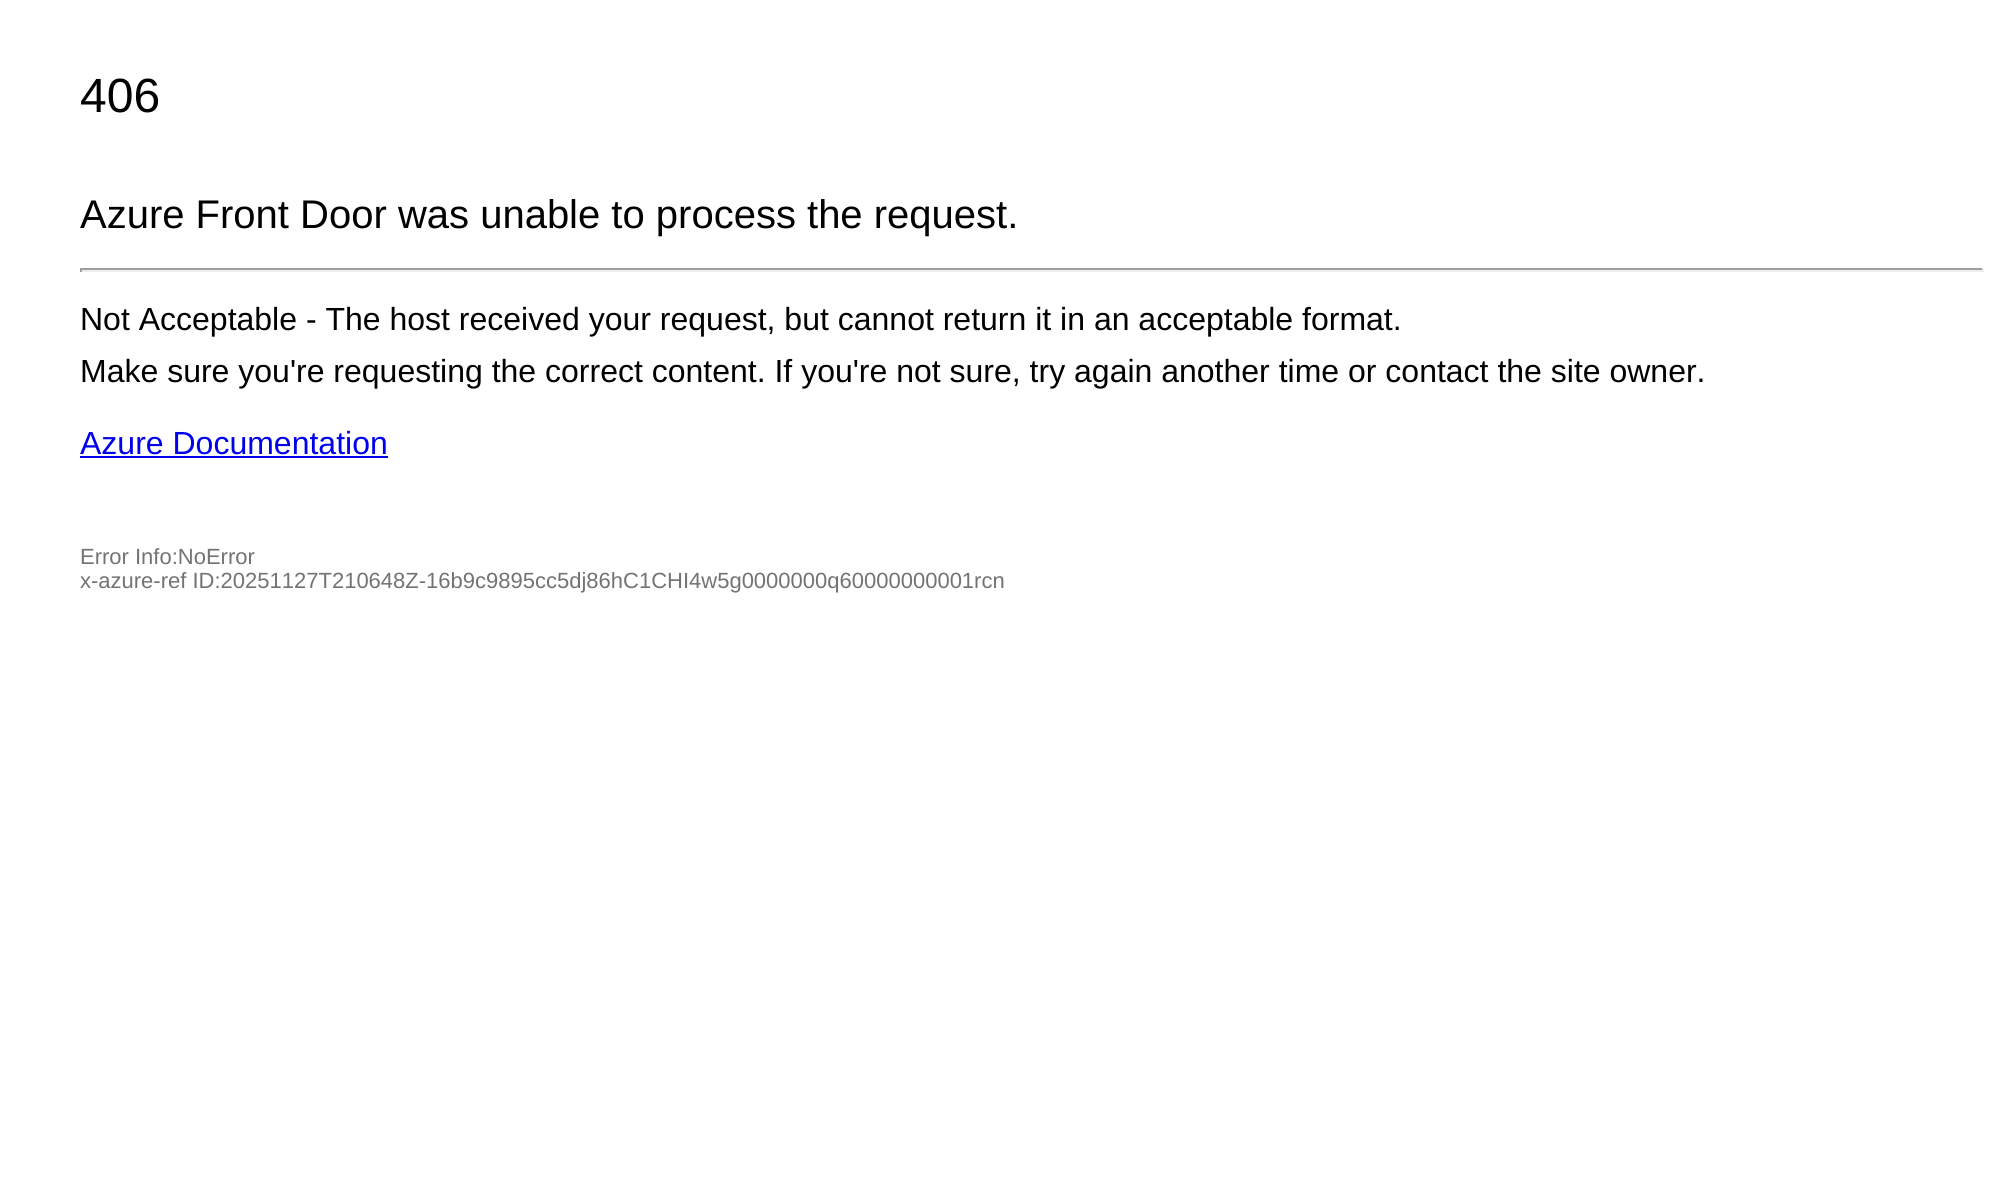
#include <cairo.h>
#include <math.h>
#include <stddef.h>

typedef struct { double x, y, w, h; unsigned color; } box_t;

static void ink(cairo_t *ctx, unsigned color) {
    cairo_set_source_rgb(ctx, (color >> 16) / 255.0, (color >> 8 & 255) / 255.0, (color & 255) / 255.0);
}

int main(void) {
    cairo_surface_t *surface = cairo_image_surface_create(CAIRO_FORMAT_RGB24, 2000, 1190);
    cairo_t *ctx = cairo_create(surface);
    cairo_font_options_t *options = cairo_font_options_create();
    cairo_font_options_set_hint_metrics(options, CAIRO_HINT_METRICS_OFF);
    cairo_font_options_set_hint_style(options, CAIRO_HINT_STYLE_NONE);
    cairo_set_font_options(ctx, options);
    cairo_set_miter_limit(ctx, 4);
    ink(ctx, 0xFFFFFF);
    cairo_paint(ctx);
    cairo_select_font_face(ctx, "Liberation Sans", CAIRO_FONT_SLANT_NORMAL, CAIRO_FONT_WEIGHT_NORMAL);
    cairo_set_font_size(ctx, 48);
    ink(ctx, 0x000000);
    cairo_move_to(ctx, 80, 112);
    cairo_show_text(ctx, "406");
    cairo_set_font_size(ctx, 40);
    cairo_move_to(ctx, 80, 228);
    cairo_show_text(ctx, "Azure Front Door was unable to process the request.");
    {
        static const box_t items[] = {
            {80, 268, 1904, 2, 0x9F9F9F},
            {1982, 268, 2, 4, 0xEEEEEE},
            {80, 270, 1904, 2, 0xEEEEEE},
            {80, 268, 2, 4, 0x9F9F9F},
        };
        for (size_t i = 0; i < sizeof items / sizeof *items; i++) {
            ink(ctx, items[i].color);
            cairo_rectangle(ctx, items[i].x, items[i].y, items[i].w, items[i].h);
            cairo_fill(ctx);
        }
    }
    cairo_set_font_size(ctx, 32);
    ink(ctx, 0x000000);
    cairo_move_to(ctx, 80, 330);
    cairo_show_text(ctx, "Not Acceptable - The host received your request, but cannot return it in an acceptable format.");
    cairo_move_to(ctx, 80, 382);
    cairo_show_text(ctx, "Make sure you're requesting the correct content. If you're not sure, try again another time or contact the site owner.");
    ink(ctx, 0x0000EE);
    cairo_move_to(ctx, 80, 454);
    cairo_show_text(ctx, "Azure Documentation");
    cairo_rectangle(ctx, 80, 456, 308, 2);
    cairo_fill(ctx);
    cairo_set_font_size(ctx, 22);
    ink(ctx, 0x737373);
    cairo_move_to(ctx, 80, 564);
    cairo_show_text(ctx, "Error Info:NoError");
    cairo_move_to(ctx, 80, 588);
    cairo_show_text(ctx, "x-azure-ref ID:20251127T210648Z-16b9c9895cc5dj86hC1CHI4w5g0000000q60000000001rcn");
    cairo_surface_write_to_png(surface, "image.png");
    cairo_font_options_destroy(options);
    cairo_destroy(ctx);
    cairo_surface_destroy(surface);
    return 0;
}
